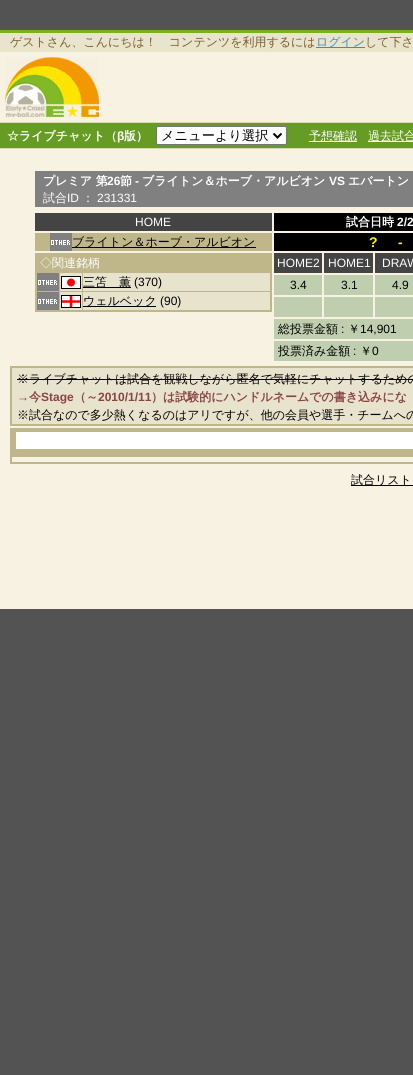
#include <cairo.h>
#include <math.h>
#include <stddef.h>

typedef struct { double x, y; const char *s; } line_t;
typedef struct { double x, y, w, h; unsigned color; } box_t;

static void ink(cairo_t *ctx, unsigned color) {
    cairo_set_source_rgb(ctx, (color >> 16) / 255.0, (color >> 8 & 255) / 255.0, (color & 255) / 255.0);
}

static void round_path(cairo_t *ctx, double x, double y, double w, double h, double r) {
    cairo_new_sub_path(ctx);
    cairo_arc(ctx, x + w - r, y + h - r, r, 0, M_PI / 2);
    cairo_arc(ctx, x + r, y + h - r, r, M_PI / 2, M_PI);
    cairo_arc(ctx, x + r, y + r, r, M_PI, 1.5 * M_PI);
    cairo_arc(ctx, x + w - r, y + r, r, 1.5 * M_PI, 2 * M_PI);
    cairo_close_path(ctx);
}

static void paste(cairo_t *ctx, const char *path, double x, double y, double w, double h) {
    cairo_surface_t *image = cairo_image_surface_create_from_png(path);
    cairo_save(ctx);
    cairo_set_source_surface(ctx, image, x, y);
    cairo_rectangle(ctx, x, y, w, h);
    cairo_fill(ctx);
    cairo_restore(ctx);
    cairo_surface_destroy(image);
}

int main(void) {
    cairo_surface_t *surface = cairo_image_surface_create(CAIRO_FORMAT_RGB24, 413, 1075);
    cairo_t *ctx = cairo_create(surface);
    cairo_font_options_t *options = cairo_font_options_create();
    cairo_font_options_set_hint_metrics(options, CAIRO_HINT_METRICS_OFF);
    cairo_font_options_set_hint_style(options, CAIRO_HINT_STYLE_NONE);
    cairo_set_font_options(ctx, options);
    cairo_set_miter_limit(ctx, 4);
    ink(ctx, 0x535353);
    cairo_paint(ctx);
    {
        static const box_t items[] = {
            {0, 52, 413, 70, 0xF7F2E1},
            {0, 33, 413, 19, 0xE9E4CC},
            {0, 30, 413, 3, 0x73B41D},
        };
        for (size_t i = 0; i < sizeof items / sizeof *items; i++) {
            ink(ctx, items[i].color);
            cairo_rectangle(ctx, items[i].x, items[i].y, items[i].w, items[i].h);
            cairo_fill(ctx);
        }
    }
    cairo_select_font_face(ctx, "WenQuanYi Zen Hei Medium", CAIRO_FONT_SLANT_NORMAL, CAIRO_FONT_WEIGHT_NORMAL);
    cairo_set_font_size(ctx, 12);
    ink(ctx, 0x7C5E2A);
    cairo_move_to(ctx, 10, 46);
    cairo_show_text(ctx, "ゲストさん、こんにちは！　コンテンツを利用するには");
    ink(ctx, 0x438EAE);
    cairo_rectangle(ctx, 316, 47, 49, 1);
    cairo_fill(ctx);
    cairo_move_to(ctx, 316, 46);
    cairo_show_text(ctx, "ログイン");
    ink(ctx, 0x7C5E2A);
    cairo_move_to(ctx, 365, 46);
    cairo_show_text(ctx, "して下さ");
    paste(ctx, "media/1.png", 5, 57, 94, 60);
    {
        static const box_t items[] = {
            {0, 123, 413, 25, 0x669C23},
            {0, 122, 413, 1, 0xDFD7B3},
            {0, 148, 413, 1, 0xDFD7B3},
        };
        for (size_t i = 0; i < sizeof items / sizeof *items; i++) {
            ink(ctx, items[i].color);
            cairo_rectangle(ctx, items[i].x, items[i].y, items[i].w, items[i].h);
            cairo_fill(ctx);
        }
    }
    cairo_select_font_face(ctx, "WenQuanYi Zen Hei", CAIRO_FONT_SLANT_NORMAL, CAIRO_FONT_WEIGHT_BOLD);
    ink(ctx, 0xFFFFFF);
    cairo_move_to(ctx, 7, 140);
    cairo_show_text(ctx, "☆ライブチャット（");
    cairo_select_font_face(ctx, "Liberation Sans", CAIRO_FONT_SLANT_NORMAL, CAIRO_FONT_WEIGHT_BOLD);
    cairo_move_to(ctx, 117, 140);
    cairo_show_text(ctx, "β");
    cairo_select_font_face(ctx, "WenQuanYi Zen Hei", CAIRO_FONT_SLANT_NORMAL, CAIRO_FONT_WEIGHT_BOLD);
    cairo_move_to(ctx, 124, 140);
    cairo_show_text(ctx, "版）");
    round_path(ctx, 156.5, 126.5, 130, 18, 1.5);
    cairo_fill_preserve(ctx);
    ink(ctx, 0x767676);
    cairo_set_line_width(ctx, 1);
    cairo_stroke(ctx);
    cairo_new_path(ctx);
    cairo_move_to(ctx, 273.5, 133.5);
    cairo_line_to(ctx, 277.5, 137.5);
    cairo_line_to(ctx, 281.5, 133.5);
    ink(ctx, 0x000000);
    cairo_set_line_width(ctx, 2);
    cairo_stroke(ctx);
    cairo_select_font_face(ctx, "WenQuanYi Zen Hei Medium", CAIRO_FONT_SLANT_NORMAL, CAIRO_FONT_WEIGHT_NORMAL);
    cairo_set_font_size(ctx, 13.25);
    cairo_move_to(ctx, 161, 140);
    cairo_show_text(ctx, "メニューより選択");
    ink(ctx, 0xFFFFFF);
    cairo_rectangle(ctx, 309, 141, 48, 1);
    cairo_fill(ctx);
    cairo_set_font_size(ctx, 12);
    cairo_move_to(ctx, 309, 140);
    cairo_show_text(ctx, "予想確認");
    cairo_rectangle(ctx, 368, 141, 45, 1);
    cairo_fill(ctx);
    cairo_move_to(ctx, 368, 140);
    cairo_show_text(ctx, "過去試合");
    ink(ctx, 0xF7F2E1);
    cairo_rectangle(ctx, 0, 149, 413, 460);
    cairo_fill(ctx);
    ink(ctx, 0x808080);
    cairo_rectangle(ctx, 35, 171, 378, 36);
    cairo_fill(ctx);
    cairo_select_font_face(ctx, "WenQuanYi Zen Hei", CAIRO_FONT_SLANT_NORMAL, CAIRO_FONT_WEIGHT_BOLD);
    ink(ctx, 0xFFFFFF);
    cairo_move_to(ctx, 43, 185);
    cairo_show_text(ctx, "プレミア 第");
    cairo_select_font_face(ctx, "Liberation Sans", CAIRO_FONT_SLANT_NORMAL, CAIRO_FONT_WEIGHT_BOLD);
    cairo_move_to(ctx, 107, 185);
    cairo_show_text(ctx, "26");
    cairo_select_font_face(ctx, "WenQuanYi Zen Hei", CAIRO_FONT_SLANT_NORMAL, CAIRO_FONT_WEIGHT_BOLD);
    cairo_move_to(ctx, 120, 185);
    cairo_show_text(ctx, "節");
    cairo_select_font_face(ctx, "Liberation Sans", CAIRO_FONT_SLANT_NORMAL, CAIRO_FONT_WEIGHT_BOLD);
    cairo_move_to(ctx, 135, 185);
    cairo_show_text(ctx, "-");
    cairo_select_font_face(ctx, "WenQuanYi Zen Hei", CAIRO_FONT_SLANT_NORMAL, CAIRO_FONT_WEIGHT_BOLD);
    cairo_move_to(ctx, 142, 185);
    cairo_show_text(ctx, "ブライトン＆ホーブ・アルビオン");
    cairo_select_font_face(ctx, "Liberation Sans", CAIRO_FONT_SLANT_NORMAL, CAIRO_FONT_WEIGHT_BOLD);
    cairo_move_to(ctx, 329, 185);
    cairo_show_text(ctx, "VS");
    cairo_select_font_face(ctx, "WenQuanYi Zen Hei", CAIRO_FONT_SLANT_NORMAL, CAIRO_FONT_WEIGHT_BOLD);
    cairo_move_to(ctx, 348, 185);
    cairo_show_text(ctx, "エバートン");
    cairo_select_font_face(ctx, "WenQuanYi Zen Hei Medium", CAIRO_FONT_SLANT_NORMAL, CAIRO_FONT_WEIGHT_NORMAL);
    cairo_move_to(ctx, 43, 202);
    cairo_show_text(ctx, "試合");
    cairo_select_font_face(ctx, "Liberation Sans", CAIRO_FONT_SLANT_NORMAL, CAIRO_FONT_WEIGHT_NORMAL);
    cairo_move_to(ctx, 67, 202);
    cairo_show_text(ctx, "ID");
    cairo_select_font_face(ctx, "WenQuanYi Zen Hei Medium", CAIRO_FONT_SLANT_NORMAL, CAIRO_FONT_WEIGHT_NORMAL);
    cairo_move_to(ctx, 82, 202);
    cairo_show_text(ctx, "：");
    cairo_select_font_face(ctx, "Liberation Sans", CAIRO_FONT_SLANT_NORMAL, CAIRO_FONT_WEIGHT_NORMAL);
    cairo_move_to(ctx, 97, 202);
    cairo_show_text(ctx, "231331");
    ink(ctx, 0x444444);
    cairo_rectangle(ctx, 35, 213, 237, 18);
    cairo_fill(ctx);
    ink(ctx, 0xFFFFFF);
    cairo_move_to(ctx, 135, 226);
    cairo_show_text(ctx, "HOME");
    ink(ctx, 0xBFB689);
    cairo_rectangle(ctx, 35, 233, 237, 18);
    cairo_fill(ctx);
    paste(ctx, "media/2.png", 50, 233, 22, 18);
    ink(ctx, 0x000000);
    cairo_rectangle(ctx, 72, 247, 184, 1);
    cairo_fill(ctx);
    cairo_select_font_face(ctx, "WenQuanYi Zen Hei Medium", CAIRO_FONT_SLANT_NORMAL, CAIRO_FONT_WEIGHT_NORMAL);
    cairo_move_to(ctx, 72, 246);
    cairo_show_text(ctx, "ブライトン＆ホーブ・アルビオン");
    cairo_rectangle(ctx, 36, 254, 235, 57);
    ink(ctx, 0xBFB689);
    cairo_stroke(ctx);
    ink(ctx, 0xE8E3CD);
    cairo_rectangle(ctx, 60, 273, 210, 37);
    cairo_fill(ctx);
    ink(ctx, 0xBFB689);
    cairo_rectangle(ctx, 37, 255, 233, 18);
    cairo_fill(ctx);
    ink(ctx, 0xFFFFFF);
    cairo_move_to(ctx, 40, 267);
    cairo_show_text(ctx, "◇関連銘柄");
    paste(ctx, "media/2.png", 37, 273, 22, 18);
    {
        static const box_t items[] = {
            {59, 291, 211, 1, 0xBFB689},
            {59, 291, 1, 20, 0xBFB689},
            {36, 291, 24, 1, 0xBFB689},
            {59, 272, 1, 20, 0xBFB689},
        };
        for (size_t i = 0; i < sizeof items / sizeof *items; i++) {
            ink(ctx, items[i].color);
            cairo_rectangle(ctx, items[i].x, items[i].y, items[i].w, items[i].h);
            cairo_fill(ctx);
        }
    }
    paste(ctx, "media/3.png", 61, 276, 20, 13);
    ink(ctx, 0x000000);
    cairo_rectangle(ctx, 83, 287, 48, 1);
    cairo_fill(ctx);
    ink(ctx, 0xBFB689);
    cairo_rectangle(ctx, 82, 272, 1, 39);
    cairo_fill(ctx);
    ink(ctx, 0x000000);
    cairo_move_to(ctx, 83, 286);
    cairo_show_text(ctx, "三笘　薫");
    cairo_select_font_face(ctx, "Liberation Sans", CAIRO_FONT_SLANT_NORMAL, CAIRO_FONT_WEIGHT_NORMAL);
    cairo_move_to(ctx, 134, 286);
    cairo_show_text(ctx, "(370)");
    paste(ctx, "media/2.png", 37, 292, 22, 18);
    paste(ctx, "media/4.png", 61, 295, 20, 13);
    cairo_rectangle(ctx, 83, 306, 73, 1);
    cairo_fill(ctx);
    cairo_select_font_face(ctx, "WenQuanYi Zen Hei Medium", CAIRO_FONT_SLANT_NORMAL, CAIRO_FONT_WEIGHT_NORMAL);
    cairo_move_to(ctx, 83, 305);
    cairo_show_text(ctx, "ウェルベック");
    cairo_select_font_face(ctx, "Liberation Sans", CAIRO_FONT_SLANT_NORMAL, CAIRO_FONT_WEIGHT_NORMAL);
    cairo_move_to(ctx, 160, 305);
    cairo_show_text(ctx, "(90)");
    cairo_rectangle(ctx, 274, 213, 139, 18);
    cairo_fill(ctx);
    cairo_select_font_face(ctx, "WenQuanYi Zen Hei", CAIRO_FONT_SLANT_NORMAL, CAIRO_FONT_WEIGHT_BOLD);
    ink(ctx, 0xFFFFFF);
    cairo_move_to(ctx, 346, 226);
    cairo_show_text(ctx, "試合日時");
    cairo_select_font_face(ctx, "Liberation Sans", CAIRO_FONT_SLANT_NORMAL, CAIRO_FONT_WEIGHT_BOLD);
    cairo_move_to(ctx, 397, 226);
    cairo_show_text(ctx, "2/2");
    ink(ctx, 0x000000);
    cairo_rectangle(ctx, 274, 233, 139, 18);
    cairo_fill(ctx);
    cairo_set_font_size(ctx, 14);
    ink(ctx, 0xFFF100);
    cairo_move_to(ctx, 369, 247);
    cairo_show_text(ctx, "?");
    cairo_move_to(ctx, 398, 247);
    cairo_show_text(ctx, "-");
    ink(ctx, 0xC0CEB0);
    cairo_rectangle(ctx, 274, 275, 139, 86);
    cairo_fill(ctx);
    ink(ctx, 0x444444);
    cairo_rectangle(ctx, 274, 253, 48, 20);
    cairo_fill(ctx);
    cairo_select_font_face(ctx, "Liberation Sans", CAIRO_FONT_SLANT_NORMAL, CAIRO_FONT_WEIGHT_NORMAL);
    cairo_set_font_size(ctx, 12);
    ink(ctx, 0xFFFFFF);
    cairo_move_to(ctx, 277, 267);
    cairo_show_text(ctx, "HOME2");
    ink(ctx, 0x444444);
    cairo_rectangle(ctx, 324, 253, 49, 20);
    cairo_fill(ctx);
    ink(ctx, 0xFFFFFF);
    cairo_move_to(ctx, 328, 267);
    cairo_show_text(ctx, "HOME1");
    ink(ctx, 0x444444);
    cairo_rectangle(ctx, 375, 253, 38, 20);
    cairo_fill(ctx);
    ink(ctx, 0xFFFFFF);
    cairo_move_to(ctx, 382, 267);
    cairo_show_text(ctx, "DRAW");
    {
        static const box_t items[] = {
            {273, 295, 140, 2, 0xF7F2E1},
            {273, 317, 140, 2, 0xF7F2E1},
            {322, 273, 2, 46, 0xF7F2E1},
            {373, 273, 2, 46, 0xF7F2E1},
        };
        for (size_t i = 0; i < sizeof items / sizeof *items; i++) {
            ink(ctx, items[i].color);
            cairo_rectangle(ctx, items[i].x, items[i].y, items[i].w, items[i].h);
            cairo_fill(ctx);
        }
    }
    ink(ctx, 0x000000);
    {
        static const line_t items[] = {
            {290, 289, "3.4"},
            {341, 289, "3.1"},
            {392, 289, "4.9"},
        };
        for (size_t i = 0; i < sizeof items / sizeof *items; i++) {
            cairo_move_to(ctx, items[i].x, items[i].y);
            cairo_show_text(ctx, items[i].s);
        }
    }
    cairo_select_font_face(ctx, "WenQuanYi Zen Hei Medium", CAIRO_FONT_SLANT_NORMAL, CAIRO_FONT_WEIGHT_NORMAL);
    cairo_move_to(ctx, 278, 333);
    cairo_show_text(ctx, "総投票金額");
    cairo_select_font_face(ctx, "Liberation Sans", CAIRO_FONT_SLANT_NORMAL, CAIRO_FONT_WEIGHT_NORMAL);
    cairo_move_to(ctx, 341, 333);
    cairo_show_text(ctx, ":");
    cairo_select_font_face(ctx, "WenQuanYi Zen Hei Medium", CAIRO_FONT_SLANT_NORMAL, CAIRO_FONT_WEIGHT_NORMAL);
    cairo_move_to(ctx, 348, 333);
    cairo_show_text(ctx, "￥");
    cairo_select_font_face(ctx, "Liberation Sans", CAIRO_FONT_SLANT_NORMAL, CAIRO_FONT_WEIGHT_NORMAL);
    cairo_move_to(ctx, 360, 333);
    cairo_show_text(ctx, "14,901");
    ink(ctx, 0xF7F2E1);
    cairo_rectangle(ctx, 273, 339, 140, 2);
    cairo_fill(ctx);
    cairo_select_font_face(ctx, "WenQuanYi Zen Hei Medium", CAIRO_FONT_SLANT_NORMAL, CAIRO_FONT_WEIGHT_NORMAL);
    ink(ctx, 0x000000);
    cairo_move_to(ctx, 278, 355);
    cairo_show_text(ctx, "投票済み金額");
    cairo_select_font_face(ctx, "Liberation Sans", CAIRO_FONT_SLANT_NORMAL, CAIRO_FONT_WEIGHT_NORMAL);
    cairo_move_to(ctx, 353, 355);
    cairo_show_text(ctx, ":");
    cairo_select_font_face(ctx, "WenQuanYi Zen Hei Medium", CAIRO_FONT_SLANT_NORMAL, CAIRO_FONT_WEIGHT_NORMAL);
    cairo_move_to(ctx, 360, 355);
    cairo_show_text(ctx, "￥");
    cairo_select_font_face(ctx, "Liberation Sans", CAIRO_FONT_SLANT_NORMAL, CAIRO_FONT_WEIGHT_NORMAL);
    cairo_move_to(ctx, 372, 355);
    cairo_show_text(ctx, "0");
    ink(ctx, 0xE8E3CD);
    cairo_rectangle(ctx, 11, 367, 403, 58);
    cairo_fill_preserve(ctx);
    ink(ctx, 0xBFB689);
    cairo_stroke(ctx);
    cairo_select_font_face(ctx, "WenQuanYi Zen Hei Medium", CAIRO_FONT_SLANT_NORMAL, CAIRO_FONT_WEIGHT_NORMAL);
    ink(ctx, 0x000000);
    cairo_move_to(ctx, 17, 383);
    cairo_show_text(ctx, "※ライブチャットは試合を観戦しながら匿名で気軽にチャットするための");
    cairo_rectangle(ctx, 17, 379, 396, 1);
    cairo_fill(ctx);
    cairo_select_font_face(ctx, "Liberation Sans", CAIRO_FONT_SLANT_NORMAL, CAIRO_FONT_WEIGHT_BOLD);
    ink(ctx, 0x884444);
    cairo_move_to(ctx, 17, 401);
    cairo_show_text(ctx, "→");
    cairo_select_font_face(ctx, "WenQuanYi Zen Hei", CAIRO_FONT_SLANT_NORMAL, CAIRO_FONT_WEIGHT_BOLD);
    cairo_move_to(ctx, 29, 401);
    cairo_show_text(ctx, "今");
    cairo_select_font_face(ctx, "Liberation Sans", CAIRO_FONT_SLANT_NORMAL, CAIRO_FONT_WEIGHT_BOLD);
    cairo_move_to(ctx, 41, 401);
    cairo_show_text(ctx, "Stage");
    cairo_select_font_face(ctx, "WenQuanYi Zen Hei", CAIRO_FONT_SLANT_NORMAL, CAIRO_FONT_WEIGHT_BOLD);
    cairo_move_to(ctx, 74, 401);
    cairo_show_text(ctx, "（～");
    cairo_select_font_face(ctx, "Liberation Sans", CAIRO_FONT_SLANT_NORMAL, CAIRO_FONT_WEIGHT_BOLD);
    cairo_move_to(ctx, 98, 401);
    cairo_show_text(ctx, "2010/1/11");
    cairo_select_font_face(ctx, "WenQuanYi Zen Hei", CAIRO_FONT_SLANT_NORMAL, CAIRO_FONT_WEIGHT_BOLD);
    cairo_move_to(ctx, 151, 401);
    cairo_show_text(ctx, "）は試験的にハンドルネームでの書き込みにな");
    cairo_select_font_face(ctx, "WenQuanYi Zen Hei Medium", CAIRO_FONT_SLANT_NORMAL, CAIRO_FONT_WEIGHT_NORMAL);
    ink(ctx, 0x000000);
    cairo_move_to(ctx, 17, 419);
    cairo_show_text(ctx, "※試合なので多少熱くなるのはアリですが、他の会員や選手・チームへの");
    cairo_rectangle(ctx, 11, 429, 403, 34);
    ink(ctx, 0xBFB689);
    cairo_stroke(ctx);
    {
        static const box_t items[] = {
            {12, 430, 401, 27, 0xBFB689},
            {16, 432, 397, 17, 0xFFFFFF},
            {351, 485, 62, 1, 0x000000},
        };
        for (size_t i = 0; i < sizeof items / sizeof *items; i++) {
            ink(ctx, items[i].color);
            cairo_rectangle(ctx, items[i].x, items[i].y, items[i].w, items[i].h);
            cairo_fill(ctx);
        }
    }
    cairo_move_to(ctx, 351, 484);
    cairo_show_text(ctx, "試合リスト");
    cairo_surface_write_to_png(surface, "image.png");
    cairo_font_options_destroy(options);
    cairo_destroy(ctx);
    cairo_surface_destroy(surface);
    return 0;
}
